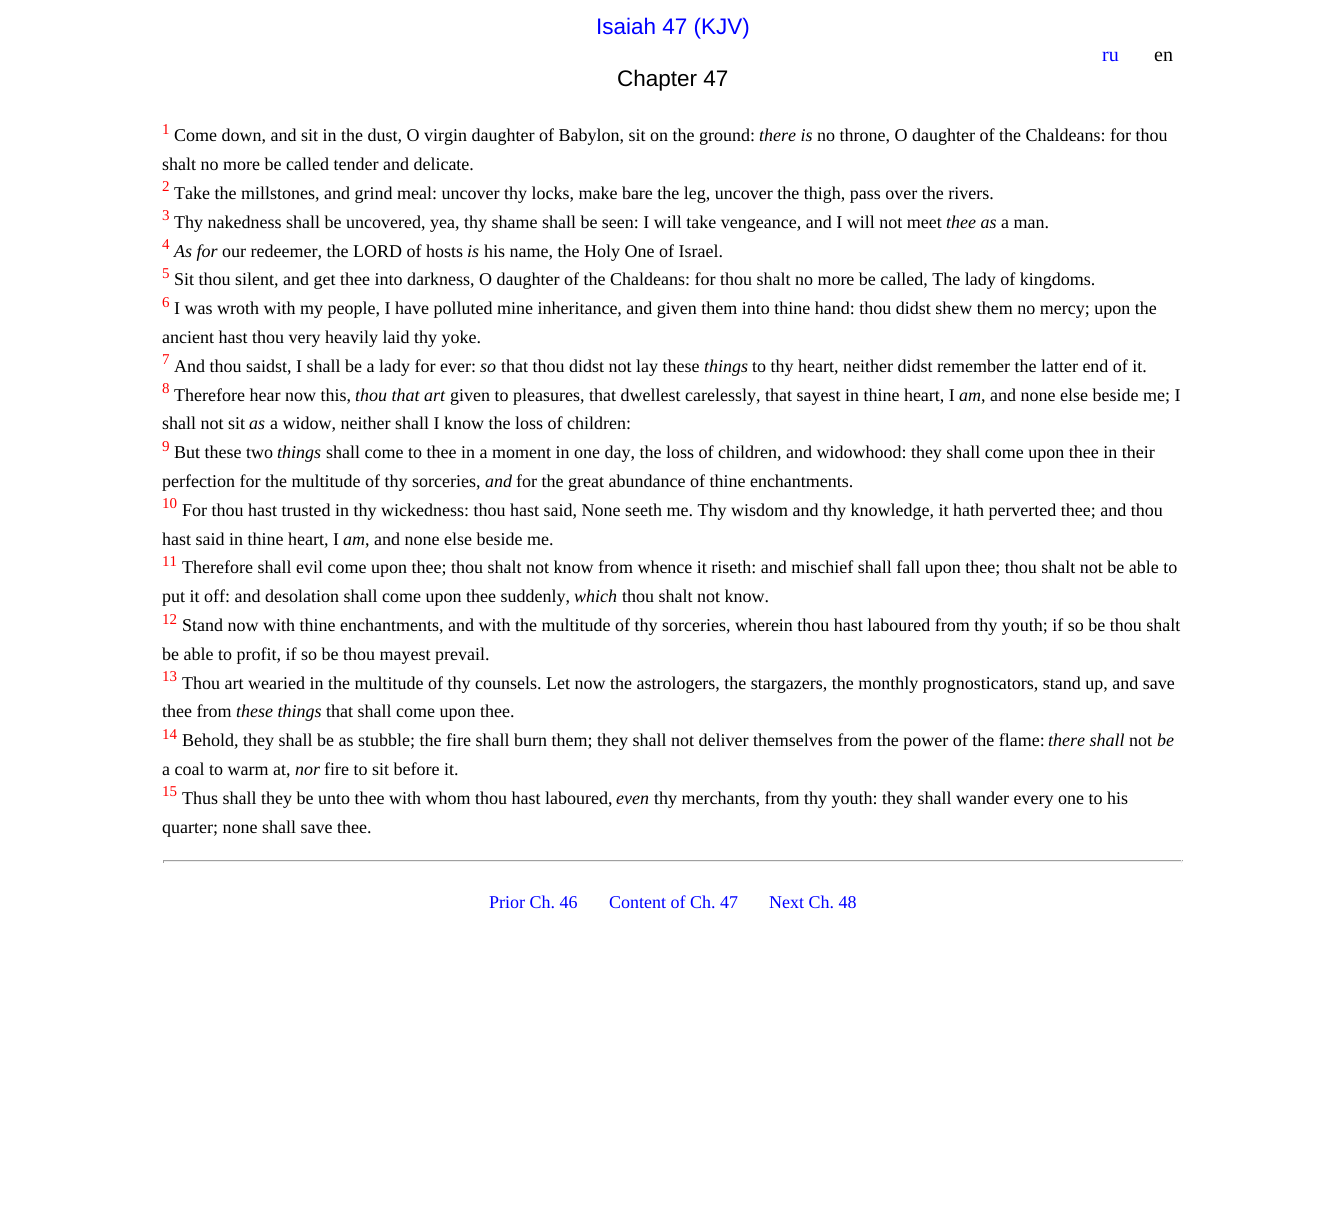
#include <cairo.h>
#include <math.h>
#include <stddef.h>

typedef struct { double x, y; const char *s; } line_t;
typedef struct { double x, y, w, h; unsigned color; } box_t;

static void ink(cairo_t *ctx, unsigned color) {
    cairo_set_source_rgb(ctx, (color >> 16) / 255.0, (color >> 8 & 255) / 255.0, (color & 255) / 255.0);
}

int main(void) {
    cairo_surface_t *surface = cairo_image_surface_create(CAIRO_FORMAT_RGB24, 1344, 1231);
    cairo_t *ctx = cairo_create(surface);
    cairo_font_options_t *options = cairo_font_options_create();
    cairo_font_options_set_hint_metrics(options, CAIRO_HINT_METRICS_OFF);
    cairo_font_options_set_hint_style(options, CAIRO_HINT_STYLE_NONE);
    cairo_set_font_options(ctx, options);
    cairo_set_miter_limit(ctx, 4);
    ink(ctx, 0xFFFFFF);
    cairo_paint(ctx);
    cairo_select_font_face(ctx, "Liberation Sans", CAIRO_FONT_SLANT_NORMAL, CAIRO_FONT_WEIGHT_NORMAL);
    cairo_set_font_size(ctx, 22.5);
    ink(ctx, 0x0000FF);
    cairo_move_to(ctx, 596, 34);
    cairo_show_text(ctx, "Isaiah 47 (KJV)");
    cairo_select_font_face(ctx, "Liberation Serif", CAIRO_FONT_SLANT_NORMAL, CAIRO_FONT_WEIGHT_NORMAL);
    cairo_set_font_size(ctx, 20);
    cairo_move_to(ctx, 1102, 61);
    cairo_show_text(ctx, "ru");
    ink(ctx, 0x000000);
    cairo_move_to(ctx, 1154, 61);
    cairo_show_text(ctx, "en");
    cairo_select_font_face(ctx, "Liberation Sans", CAIRO_FONT_SLANT_NORMAL, CAIRO_FONT_WEIGHT_NORMAL);
    cairo_set_font_size(ctx, 22.5);
    cairo_move_to(ctx, 617, 86);
    cairo_show_text(ctx, "Chapter 47");
    cairo_select_font_face(ctx, "Liberation Serif", CAIRO_FONT_SLANT_NORMAL, CAIRO_FONT_WEIGHT_NORMAL);
    cairo_set_font_size(ctx, 15);
    ink(ctx, 0xFF0000);
    cairo_move_to(ctx, 162, 134);
    cairo_show_text(ctx, "1");
    cairo_set_font_size(ctx, 18);
    ink(ctx, 0x000000);
    cairo_move_to(ctx, 174, 141);
    cairo_show_text(ctx, "Come down, and sit in the dust, O virgin daughter of Babylon, sit on the ground:");
    cairo_select_font_face(ctx, "Liberation Serif", CAIRO_FONT_SLANT_ITALIC, CAIRO_FONT_WEIGHT_NORMAL);
    cairo_move_to(ctx, 759, 141);
    cairo_show_text(ctx, "there is");
    cairo_select_font_face(ctx, "Liberation Serif", CAIRO_FONT_SLANT_NORMAL, CAIRO_FONT_WEIGHT_NORMAL);
    cairo_move_to(ctx, 817, 141);
    cairo_show_text(ctx, "no throne, O daughter of the Chaldeans: for thou");
    cairo_move_to(ctx, 162, 170);
    cairo_show_text(ctx, "shalt no more be called tender and delicate.");
    cairo_set_font_size(ctx, 15);
    ink(ctx, 0xFF0000);
    cairo_move_to(ctx, 162, 191);
    cairo_show_text(ctx, "2");
    cairo_set_font_size(ctx, 18);
    ink(ctx, 0x000000);
    cairo_move_to(ctx, 174, 199);
    cairo_show_text(ctx, "Take the millstones, and grind meal: uncover thy locks, make bare the leg, uncover the thigh, pass over the rivers.");
    cairo_set_font_size(ctx, 15);
    ink(ctx, 0xFF0000);
    cairo_move_to(ctx, 162, 220);
    cairo_show_text(ctx, "3");
    cairo_set_font_size(ctx, 18);
    ink(ctx, 0x000000);
    cairo_move_to(ctx, 174, 228);
    cairo_show_text(ctx, "Thy nakedness shall be uncovered, yea, thy shame shall be seen: I will take vengeance, and I will not meet");
    cairo_select_font_face(ctx, "Liberation Serif", CAIRO_FONT_SLANT_ITALIC, CAIRO_FONT_WEIGHT_NORMAL);
    cairo_move_to(ctx, 946, 228);
    cairo_show_text(ctx, "thee as");
    cairo_select_font_face(ctx, "Liberation Serif", CAIRO_FONT_SLANT_NORMAL, CAIRO_FONT_WEIGHT_NORMAL);
    cairo_move_to(ctx, 1001, 228);
    cairo_show_text(ctx, "a man.");
    cairo_set_font_size(ctx, 15);
    ink(ctx, 0xFF0000);
    cairo_move_to(ctx, 162, 249);
    cairo_show_text(ctx, "4");
    cairo_select_font_face(ctx, "Liberation Serif", CAIRO_FONT_SLANT_ITALIC, CAIRO_FONT_WEIGHT_NORMAL);
    cairo_set_font_size(ctx, 18);
    ink(ctx, 0x000000);
    cairo_move_to(ctx, 174, 257);
    cairo_show_text(ctx, "As for");
    cairo_select_font_face(ctx, "Liberation Serif", CAIRO_FONT_SLANT_NORMAL, CAIRO_FONT_WEIGHT_NORMAL);
    cairo_move_to(ctx, 222, 257);
    cairo_show_text(ctx, "our redeemer, the LORD of hosts");
    cairo_select_font_face(ctx, "Liberation Serif", CAIRO_FONT_SLANT_ITALIC, CAIRO_FONT_WEIGHT_NORMAL);
    cairo_move_to(ctx, 467, 257);
    cairo_show_text(ctx, "is");
    cairo_select_font_face(ctx, "Liberation Serif", CAIRO_FONT_SLANT_NORMAL, CAIRO_FONT_WEIGHT_NORMAL);
    cairo_move_to(ctx, 484, 257);
    cairo_show_text(ctx, "his name, the Holy One of Israel.");
    cairo_set_font_size(ctx, 15);
    ink(ctx, 0xFF0000);
    cairo_move_to(ctx, 162, 278);
    cairo_show_text(ctx, "5");
    cairo_set_font_size(ctx, 18);
    ink(ctx, 0x000000);
    cairo_move_to(ctx, 174, 285);
    cairo_show_text(ctx, "Sit thou silent, and get thee into darkness, O daughter of the Chaldeans: for thou shalt no more be called, The lady of kingdoms.");
    cairo_set_font_size(ctx, 15);
    ink(ctx, 0xFF0000);
    cairo_move_to(ctx, 162, 307);
    cairo_show_text(ctx, "6");
    cairo_set_font_size(ctx, 18);
    ink(ctx, 0x000000);
    cairo_move_to(ctx, 174, 314);
    cairo_show_text(ctx, "I was wroth with my people, I have polluted mine inheritance, and given them into thine hand: thou didst shew them no mercy; upon the");
    cairo_move_to(ctx, 162, 343);
    cairo_show_text(ctx, "ancient hast thou very heavily laid thy yoke.");
    cairo_set_font_size(ctx, 15);
    ink(ctx, 0xFF0000);
    cairo_move_to(ctx, 162, 364);
    cairo_show_text(ctx, "7");
    cairo_set_font_size(ctx, 18);
    ink(ctx, 0x000000);
    cairo_move_to(ctx, 174, 372);
    cairo_show_text(ctx, "And thou saidst, I shall be a lady for ever:");
    cairo_select_font_face(ctx, "Liberation Serif", CAIRO_FONT_SLANT_ITALIC, CAIRO_FONT_WEIGHT_NORMAL);
    cairo_move_to(ctx, 480, 372);
    cairo_show_text(ctx, "so");
    cairo_select_font_face(ctx, "Liberation Serif", CAIRO_FONT_SLANT_NORMAL, CAIRO_FONT_WEIGHT_NORMAL);
    cairo_move_to(ctx, 501, 372);
    cairo_show_text(ctx, "that thou didst not lay these");
    cairo_select_font_face(ctx, "Liberation Serif", CAIRO_FONT_SLANT_ITALIC, CAIRO_FONT_WEIGHT_NORMAL);
    cairo_move_to(ctx, 704, 372);
    cairo_show_text(ctx, "things");
    cairo_select_font_face(ctx, "Liberation Serif", CAIRO_FONT_SLANT_NORMAL, CAIRO_FONT_WEIGHT_NORMAL);
    cairo_move_to(ctx, 752, 372);
    cairo_show_text(ctx, "to thy heart, neither didst remember the latter end of it.");
    cairo_set_font_size(ctx, 15);
    ink(ctx, 0xFF0000);
    cairo_move_to(ctx, 162, 393);
    cairo_show_text(ctx, "8");
    cairo_set_font_size(ctx, 18);
    ink(ctx, 0x000000);
    cairo_move_to(ctx, 174, 401);
    cairo_show_text(ctx, "Therefore hear now this,");
    cairo_select_font_face(ctx, "Liberation Serif", CAIRO_FONT_SLANT_ITALIC, CAIRO_FONT_WEIGHT_NORMAL);
    cairo_move_to(ctx, 355, 401);
    cairo_show_text(ctx, "thou that art");
    cairo_select_font_face(ctx, "Liberation Serif", CAIRO_FONT_SLANT_NORMAL, CAIRO_FONT_WEIGHT_NORMAL);
    cairo_move_to(ctx, 450, 401);
    cairo_show_text(ctx, "given to pleasures, that dwellest carelessly, that sayest in thine heart, I");
    cairo_select_font_face(ctx, "Liberation Serif", CAIRO_FONT_SLANT_ITALIC, CAIRO_FONT_WEIGHT_NORMAL);
    cairo_move_to(ctx, 959, 401);
    cairo_show_text(ctx, "am");
    cairo_select_font_face(ctx, "Liberation Serif", CAIRO_FONT_SLANT_NORMAL, CAIRO_FONT_WEIGHT_NORMAL);
    cairo_move_to(ctx, 981, 401);
    cairo_show_text(ctx, ", and none else beside me; I");
    cairo_move_to(ctx, 162, 429);
    cairo_show_text(ctx, "shall not sit");
    cairo_select_font_face(ctx, "Liberation Serif", CAIRO_FONT_SLANT_ITALIC, CAIRO_FONT_WEIGHT_NORMAL);
    cairo_move_to(ctx, 249, 429);
    cairo_show_text(ctx, "as");
    cairo_select_font_face(ctx, "Liberation Serif", CAIRO_FONT_SLANT_NORMAL, CAIRO_FONT_WEIGHT_NORMAL);
    cairo_move_to(ctx, 270, 429);
    cairo_show_text(ctx, "a widow, neither shall I know the loss of children:");
    cairo_set_font_size(ctx, 15);
    ink(ctx, 0xFF0000);
    cairo_move_to(ctx, 162, 451);
    cairo_show_text(ctx, "9");
    cairo_set_font_size(ctx, 18);
    ink(ctx, 0x000000);
    cairo_move_to(ctx, 174, 458);
    cairo_show_text(ctx, "But these two");
    cairo_select_font_face(ctx, "Liberation Serif", CAIRO_FONT_SLANT_ITALIC, CAIRO_FONT_WEIGHT_NORMAL);
    cairo_move_to(ctx, 277, 458);
    cairo_show_text(ctx, "things");
    cairo_select_font_face(ctx, "Liberation Serif", CAIRO_FONT_SLANT_NORMAL, CAIRO_FONT_WEIGHT_NORMAL);
    cairo_move_to(ctx, 326, 458);
    cairo_show_text(ctx, "shall come to thee in a moment in one day, the loss of children, and widowhood: they shall come upon thee in their");
    cairo_move_to(ctx, 162, 487);
    cairo_show_text(ctx, "perfection for the multitude of thy sorceries,");
    cairo_select_font_face(ctx, "Liberation Serif", CAIRO_FONT_SLANT_ITALIC, CAIRO_FONT_WEIGHT_NORMAL);
    cairo_move_to(ctx, 485, 487);
    cairo_show_text(ctx, "and");
    cairo_select_font_face(ctx, "Liberation Serif", CAIRO_FONT_SLANT_NORMAL, CAIRO_FONT_WEIGHT_NORMAL);
    cairo_move_to(ctx, 516, 487);
    cairo_show_text(ctx, "for the great abundance of thine enchantments.");
    cairo_set_font_size(ctx, 15);
    ink(ctx, 0xFF0000);
    cairo_move_to(ctx, 162, 508);
    cairo_show_text(ctx, "10");
    cairo_set_font_size(ctx, 18);
    ink(ctx, 0x000000);
    cairo_move_to(ctx, 182, 516);
    cairo_show_text(ctx, "For thou hast trusted in thy wickedness: thou hast said, None seeth me. Thy wisdom and thy knowledge, it hath perverted thee; and thou");
    cairo_move_to(ctx, 162, 545);
    cairo_show_text(ctx, "hast said in thine heart, I");
    cairo_select_font_face(ctx, "Liberation Serif", CAIRO_FONT_SLANT_ITALIC, CAIRO_FONT_WEIGHT_NORMAL);
    cairo_move_to(ctx, 343, 545);
    cairo_show_text(ctx, "am");
    cairo_select_font_face(ctx, "Liberation Serif", CAIRO_FONT_SLANT_NORMAL, CAIRO_FONT_WEIGHT_NORMAL);
    cairo_move_to(ctx, 365, 545);
    cairo_show_text(ctx, ", and none else beside me.");
    cairo_set_font_size(ctx, 15);
    ink(ctx, 0xFF0000);
    cairo_move_to(ctx, 162, 566);
    cairo_show_text(ctx, "11");
    cairo_set_font_size(ctx, 18);
    ink(ctx, 0x000000);
    cairo_move_to(ctx, 182, 573);
    cairo_show_text(ctx, "Therefore shall evil come upon thee; thou shalt not know from whence it riseth: and mischief shall fall upon thee; thou shalt not be able to");
    cairo_move_to(ctx, 162, 602);
    cairo_show_text(ctx, "put it off: and desolation shall come upon thee suddenly,");
    cairo_select_font_face(ctx, "Liberation Serif", CAIRO_FONT_SLANT_ITALIC, CAIRO_FONT_WEIGHT_NORMAL);
    cairo_move_to(ctx, 574, 602);
    cairo_show_text(ctx, "which");
    cairo_select_font_face(ctx, "Liberation Serif", CAIRO_FONT_SLANT_NORMAL, CAIRO_FONT_WEIGHT_NORMAL);
    cairo_move_to(ctx, 622, 602);
    cairo_show_text(ctx, "thou shalt not know.");
    cairo_set_font_size(ctx, 15);
    ink(ctx, 0xFF0000);
    cairo_move_to(ctx, 162, 624);
    cairo_show_text(ctx, "12");
    cairo_set_font_size(ctx, 18);
    ink(ctx, 0x000000);
    cairo_move_to(ctx, 182, 631);
    cairo_show_text(ctx, "Stand now with thine enchantments, and with the multitude of thy sorceries, wherein thou hast laboured from thy youth; if so be thou shalt");
    cairo_move_to(ctx, 162, 660);
    cairo_show_text(ctx, "be able to profit, if so be thou mayest prevail.");
    cairo_set_font_size(ctx, 15);
    ink(ctx, 0xFF0000);
    cairo_move_to(ctx, 162, 681);
    cairo_show_text(ctx, "13");
    cairo_set_font_size(ctx, 18);
    ink(ctx, 0x000000);
    cairo_move_to(ctx, 182, 689);
    cairo_show_text(ctx, "Thou art wearied in the multitude of thy counsels. Let now the astrologers, the stargazers, the monthly prognosticators, stand up, and save");
    cairo_move_to(ctx, 162, 717);
    cairo_show_text(ctx, "thee from");
    cairo_select_font_face(ctx, "Liberation Serif", CAIRO_FONT_SLANT_ITALIC, CAIRO_FONT_WEIGHT_NORMAL);
    cairo_move_to(ctx, 236, 717);
    cairo_show_text(ctx, "these things");
    cairo_select_font_face(ctx, "Liberation Serif", CAIRO_FONT_SLANT_NORMAL, CAIRO_FONT_WEIGHT_NORMAL);
    cairo_move_to(ctx, 326, 717);
    cairo_show_text(ctx, "that shall come upon thee.");
    cairo_set_font_size(ctx, 15);
    ink(ctx, 0xFF0000);
    cairo_move_to(ctx, 162, 739);
    cairo_show_text(ctx, "14");
    cairo_set_font_size(ctx, 18);
    ink(ctx, 0x000000);
    cairo_move_to(ctx, 182, 746);
    cairo_show_text(ctx, "Behold, they shall be as stubble; the fire shall burn them; they shall not deliver themselves from the power of the flame:");
    cairo_select_font_face(ctx, "Liberation Serif", CAIRO_FONT_SLANT_ITALIC, CAIRO_FONT_WEIGHT_NORMAL);
    cairo_move_to(ctx, 1048, 746);
    cairo_show_text(ctx, "there shall");
    cairo_select_font_face(ctx, "Liberation Serif", CAIRO_FONT_SLANT_NORMAL, CAIRO_FONT_WEIGHT_NORMAL);
    cairo_move_to(ctx, 1129, 746);
    cairo_show_text(ctx, "not");
    cairo_select_font_face(ctx, "Liberation Serif", CAIRO_FONT_SLANT_ITALIC, CAIRO_FONT_WEIGHT_NORMAL);
    cairo_move_to(ctx, 1157, 746);
    cairo_show_text(ctx, "be");
    cairo_select_font_face(ctx, "Liberation Serif", CAIRO_FONT_SLANT_NORMAL, CAIRO_FONT_WEIGHT_NORMAL);
    cairo_move_to(ctx, 162, 775);
    cairo_show_text(ctx, "a coal to warm at,");
    cairo_select_font_face(ctx, "Liberation Serif", CAIRO_FONT_SLANT_ITALIC, CAIRO_FONT_WEIGHT_NORMAL);
    cairo_move_to(ctx, 295, 775);
    cairo_show_text(ctx, "nor");
    cairo_select_font_face(ctx, "Liberation Serif", CAIRO_FONT_SLANT_NORMAL, CAIRO_FONT_WEIGHT_NORMAL);
    cairo_move_to(ctx, 324, 775);
    cairo_show_text(ctx, "fire to sit before it.");
    cairo_set_font_size(ctx, 15);
    ink(ctx, 0xFF0000);
    cairo_move_to(ctx, 162, 796);
    cairo_show_text(ctx, "15");
    cairo_set_font_size(ctx, 18);
    ink(ctx, 0x000000);
    cairo_move_to(ctx, 182, 804);
    cairo_show_text(ctx, "Thus shall they be unto thee with whom thou hast laboured,");
    cairo_select_font_face(ctx, "Liberation Serif", CAIRO_FONT_SLANT_ITALIC, CAIRO_FONT_WEIGHT_NORMAL);
    cairo_move_to(ctx, 616, 804);
    cairo_show_text(ctx, "even");
    cairo_select_font_face(ctx, "Liberation Serif", CAIRO_FONT_SLANT_NORMAL, CAIRO_FONT_WEIGHT_NORMAL);
    cairo_move_to(ctx, 654, 804);
    cairo_show_text(ctx, "thy merchants, from thy youth: they shall wander every one to his");
    cairo_move_to(ctx, 162, 833);
    cairo_show_text(ctx, "quarter; none shall save thee.");
    {
        static const box_t items[] = {
            {163, 860, 1020, 1, 0x9F9F9F},
            {1181, 860, 1, 3, 0xEEEEEE},
            {163, 861, 1020, 1, 0xEEEEEE},
            {163, 860, 1, 3, 0x9F9F9F},
        };
        for (size_t i = 0; i < sizeof items / sizeof *items; i++) {
            ink(ctx, items[i].color);
            cairo_rectangle(ctx, items[i].x, items[i].y, items[i].w, items[i].h);
            cairo_fill(ctx);
        }
    }
    ink(ctx, 0x0000FF);
    {
        static const line_t items[] = {
            {489, 908, "Prior Ch. 46"},
            {609, 908, "Content of Ch. 47"},
            {769, 908, "Next Ch. 48"},
        };
        for (size_t i = 0; i < sizeof items / sizeof *items; i++) {
            cairo_move_to(ctx, items[i].x, items[i].y);
            cairo_show_text(ctx, items[i].s);
        }
    }
    cairo_surface_write_to_png(surface, "image.png");
    cairo_font_options_destroy(options);
    cairo_destroy(ctx);
    cairo_surface_destroy(surface);
    return 0;
}
